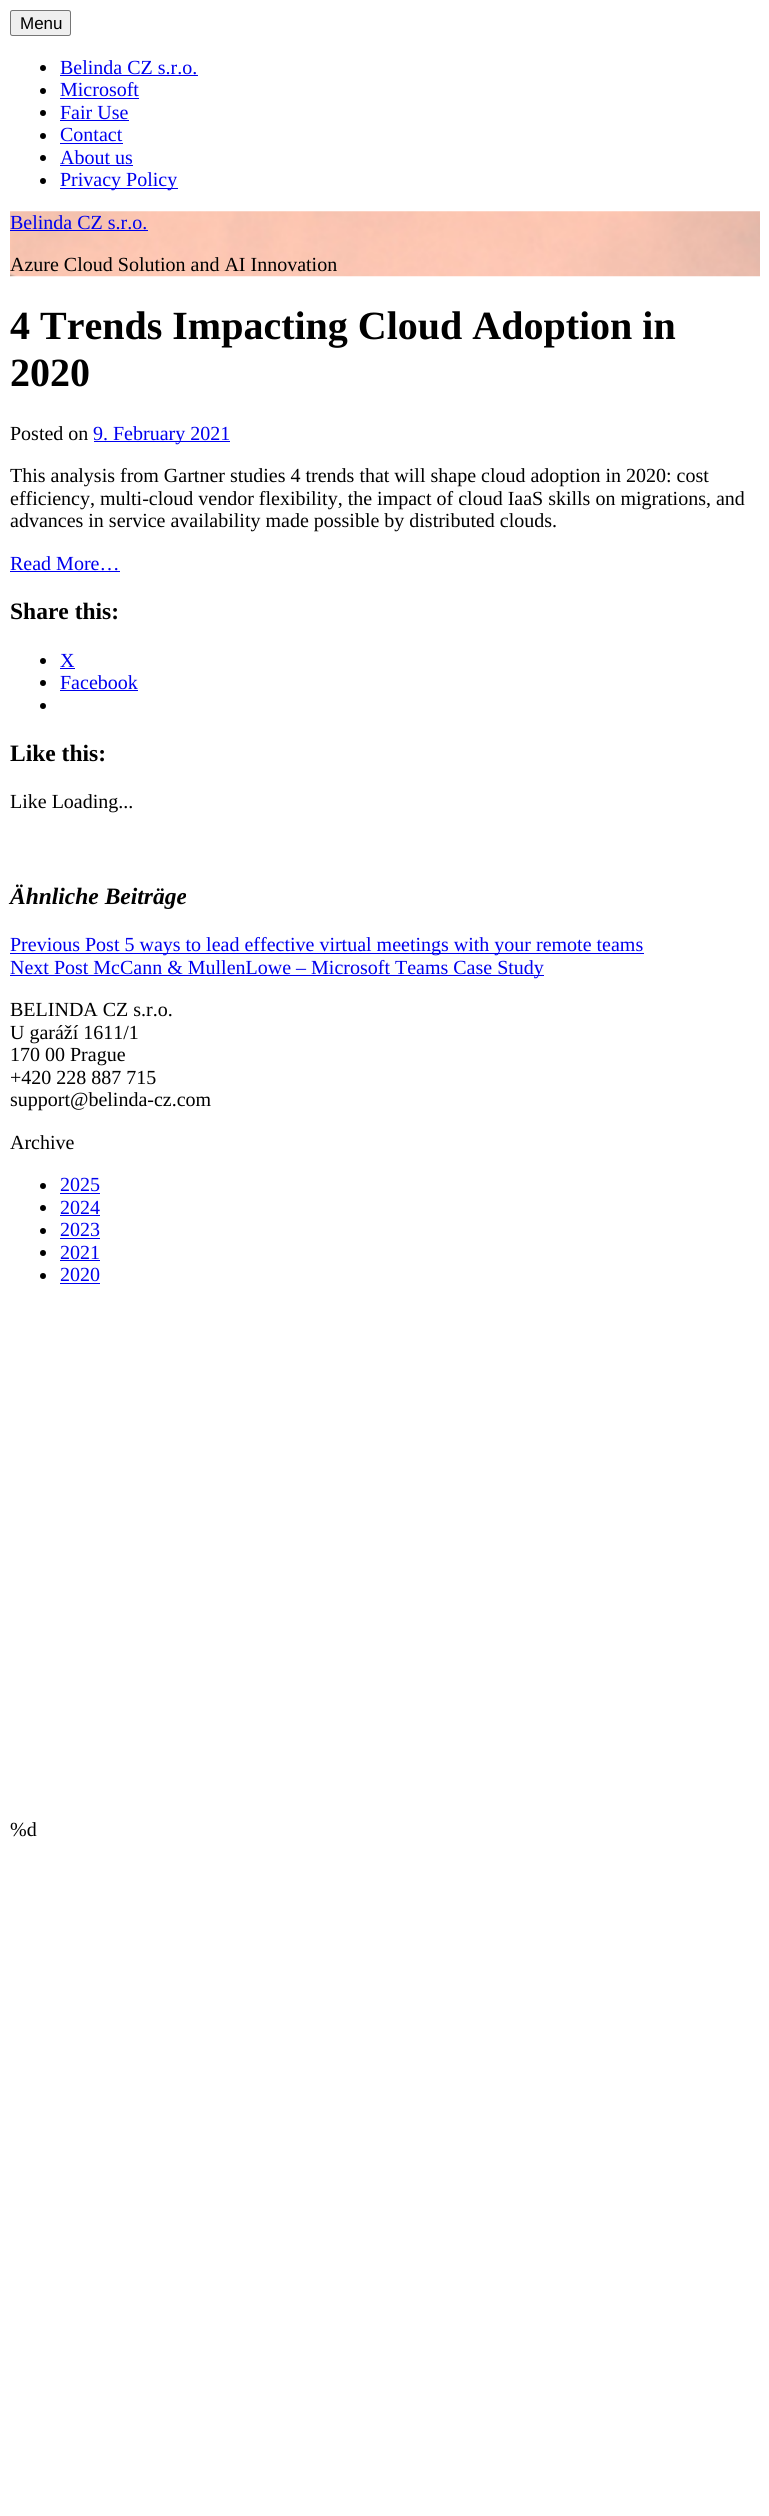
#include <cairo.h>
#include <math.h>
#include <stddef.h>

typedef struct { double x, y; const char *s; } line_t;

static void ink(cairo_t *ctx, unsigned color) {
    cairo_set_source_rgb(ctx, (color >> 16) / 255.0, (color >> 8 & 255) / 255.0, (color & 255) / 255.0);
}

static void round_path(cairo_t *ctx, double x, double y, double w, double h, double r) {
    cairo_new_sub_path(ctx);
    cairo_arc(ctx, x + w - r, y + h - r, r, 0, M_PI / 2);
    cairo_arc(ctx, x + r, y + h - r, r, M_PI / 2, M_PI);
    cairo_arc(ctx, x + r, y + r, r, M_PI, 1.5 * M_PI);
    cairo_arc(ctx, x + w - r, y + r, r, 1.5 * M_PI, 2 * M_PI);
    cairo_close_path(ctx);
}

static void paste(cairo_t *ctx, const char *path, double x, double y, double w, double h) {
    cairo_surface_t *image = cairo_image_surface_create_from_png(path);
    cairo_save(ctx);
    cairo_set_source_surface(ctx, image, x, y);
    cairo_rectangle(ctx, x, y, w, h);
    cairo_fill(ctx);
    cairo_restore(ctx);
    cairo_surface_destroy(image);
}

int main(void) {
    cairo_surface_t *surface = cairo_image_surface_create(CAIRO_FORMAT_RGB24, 769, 2516);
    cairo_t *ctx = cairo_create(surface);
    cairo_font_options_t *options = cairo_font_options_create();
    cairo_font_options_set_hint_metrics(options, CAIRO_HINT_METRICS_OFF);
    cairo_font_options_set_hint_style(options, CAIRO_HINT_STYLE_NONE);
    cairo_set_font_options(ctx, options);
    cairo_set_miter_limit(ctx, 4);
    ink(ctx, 0xFFFFFF);
    cairo_paint(ctx);
    ink(ctx, 0xEFEFEF);
    round_path(ctx, 10.5, 10.5, 60, 25, 2);
    cairo_fill_preserve(ctx);
    ink(ctx, 0x767676);
    cairo_set_line_width(ctx, 1);
    cairo_stroke(ctx);
    cairo_select_font_face(ctx, "Liberation Sans", CAIRO_FONT_SLANT_NORMAL, CAIRO_FONT_WEIGHT_NORMAL);
    cairo_set_font_size(ctx, 17);
    ink(ctx, 0x000000);
    cairo_move_to(ctx, 20, 29);
    cairo_show_text(ctx, "Menu");
    cairo_new_path(ctx);
    cairo_arc(ctx, 43, 68, 3, 0, 2 * M_PI);
    cairo_fill(ctx);
    cairo_select_font_face(ctx, "Liberation Serif", CAIRO_FONT_SLANT_NORMAL, CAIRO_FONT_WEIGHT_NORMAL);
    cairo_set_font_size(ctx, 20);
    ink(ctx, 0x0000EE);
    cairo_move_to(ctx, 60, 74);
    cairo_show_text(ctx, "Belinda CZ s.r.o.");
    cairo_rectangle(ctx, 60, 75, 138, 1);
    cairo_fill(ctx);
    ink(ctx, 0x000000);
    cairo_arc(ctx, 43, 91, 3, 0, 2 * M_PI);
    cairo_fill(ctx);
    ink(ctx, 0x0000EE);
    cairo_move_to(ctx, 60, 96);
    cairo_show_text(ctx, "Microsoft");
    cairo_rectangle(ctx, 60, 98, 79, 1);
    cairo_fill(ctx);
    ink(ctx, 0x000000);
    cairo_arc(ctx, 43, 113, 3, 0, 2 * M_PI);
    cairo_fill(ctx);
    ink(ctx, 0x0000EE);
    cairo_move_to(ctx, 60, 119);
    cairo_show_text(ctx, "Fair Use");
    cairo_rectangle(ctx, 60, 120, 69, 1);
    cairo_fill(ctx);
    ink(ctx, 0x000000);
    cairo_arc(ctx, 43, 136, 3, 0, 2 * M_PI);
    cairo_fill(ctx);
    ink(ctx, 0x0000EE);
    cairo_move_to(ctx, 60, 141);
    cairo_show_text(ctx, "Contact");
    cairo_rectangle(ctx, 60, 143, 63, 1);
    cairo_fill(ctx);
    ink(ctx, 0x000000);
    cairo_arc(ctx, 43, 158, 3, 0, 2 * M_PI);
    cairo_fill(ctx);
    ink(ctx, 0x0000EE);
    cairo_move_to(ctx, 60, 164);
    cairo_show_text(ctx, "About us");
    cairo_rectangle(ctx, 60, 165, 73, 1);
    cairo_fill(ctx);
    ink(ctx, 0x000000);
    cairo_arc(ctx, 43, 181, 3, 0, 2 * M_PI);
    cairo_fill(ctx);
    ink(ctx, 0x0000EE);
    cairo_rectangle(ctx, 60, 188, 118, 1);
    cairo_fill(ctx);
    cairo_move_to(ctx, 60, 186);
    cairo_show_text(ctx, "Privacy Policy");
    paste(ctx, "media/1.png", 10, 211, 750, 66);
    cairo_move_to(ctx, 10, 229);
    cairo_show_text(ctx, "Belinda CZ s.r.o.");
    cairo_rectangle(ctx, 10, 230, 138, 1);
    cairo_fill(ctx);
    ink(ctx, 0x000000);
    cairo_move_to(ctx, 10, 271);
    cairo_show_text(ctx, "Azure Cloud Solution and AI Innovation");
    cairo_select_font_face(ctx, "Liberation Serif", CAIRO_FONT_SLANT_NORMAL, CAIRO_FONT_WEIGHT_BOLD);
    cairo_set_font_size(ctx, 40);
    cairo_move_to(ctx, 10, 339);
    cairo_show_text(ctx, "4 Trends Impacting Cloud Adoption in");
    cairo_move_to(ctx, 10, 386);
    cairo_show_text(ctx, "2020");
    cairo_select_font_face(ctx, "Liberation Serif", CAIRO_FONT_SLANT_NORMAL, CAIRO_FONT_WEIGHT_NORMAL);
    cairo_set_font_size(ctx, 20);
    cairo_move_to(ctx, 10, 440);
    cairo_show_text(ctx, "Posted on");
    ink(ctx, 0x0000EE);
    cairo_rectangle(ctx, 94, 441, 136, 1);
    cairo_fill(ctx);
    cairo_move_to(ctx, 93, 440);
    cairo_show_text(ctx, "9. February 2021");
    ink(ctx, 0x000000);
    {
        static const line_t items[] = {
            {10, 482, "This analysis from Gartner studies 4 trends that will shape cloud adoption in 2020: cost"},
            {10, 505, "efficiency, multi-cloud vendor flexibility, the impact of cloud IaaS skills on migrations, and"},
            {10, 527, "advances in service availability made possible by distributed clouds."},
        };
        for (size_t i = 0; i < sizeof items / sizeof *items; i++) {
            cairo_move_to(ctx, items[i].x, items[i].y);
            cairo_show_text(ctx, items[i].s);
        }
    }
    ink(ctx, 0x0000EE);
    cairo_move_to(ctx, 10, 570);
    cairo_show_text(ctx, "Read More…");
    cairo_rectangle(ctx, 10, 571, 110, 1);
    cairo_fill(ctx);
    cairo_select_font_face(ctx, "Liberation Serif", CAIRO_FONT_SLANT_NORMAL, CAIRO_FONT_WEIGHT_BOLD);
    cairo_set_font_size(ctx, 23.5);
    ink(ctx, 0x000000);
    cairo_move_to(ctx, 10, 619);
    cairo_show_text(ctx, "Share this:");
    cairo_new_path(ctx);
    cairo_arc(ctx, 43, 661, 3, 0, 2 * M_PI);
    cairo_fill(ctx);
    cairo_select_font_face(ctx, "Liberation Serif", CAIRO_FONT_SLANT_NORMAL, CAIRO_FONT_WEIGHT_NORMAL);
    cairo_set_font_size(ctx, 20);
    ink(ctx, 0x0000EE);
    cairo_move_to(ctx, 60, 667);
    cairo_show_text(ctx, "X");
    cairo_rectangle(ctx, 60, 668, 15, 1);
    cairo_fill(ctx);
    ink(ctx, 0x000000);
    cairo_arc(ctx, 43, 683, 3, 0, 2 * M_PI);
    cairo_fill(ctx);
    ink(ctx, 0x0000EE);
    cairo_move_to(ctx, 60, 689);
    cairo_show_text(ctx, "Facebook");
    cairo_rectangle(ctx, 60, 690, 78, 1);
    cairo_fill(ctx);
    ink(ctx, 0x000000);
    cairo_arc(ctx, 43, 706, 3, 0, 2 * M_PI);
    cairo_fill(ctx);
    cairo_select_font_face(ctx, "Liberation Serif", CAIRO_FONT_SLANT_NORMAL, CAIRO_FONT_WEIGHT_BOLD);
    cairo_set_font_size(ctx, 23.5);
    cairo_move_to(ctx, 10, 761);
    cairo_show_text(ctx, "Like this:");
    cairo_select_font_face(ctx, "Liberation Serif", CAIRO_FONT_SLANT_NORMAL, CAIRO_FONT_WEIGHT_NORMAL);
    cairo_set_font_size(ctx, 20);
    cairo_move_to(ctx, 10, 808);
    cairo_show_text(ctx, "Like Loading...");
    cairo_select_font_face(ctx, "Liberation Serif", CAIRO_FONT_SLANT_ITALIC, CAIRO_FONT_WEIGHT_BOLD);
    cairo_set_font_size(ctx, 23.5);
    cairo_move_to(ctx, 10, 904);
    cairo_show_text(ctx, "Ähnliche Beiträge");
    ink(ctx, 0x0000EE);
    cairo_rectangle(ctx, 10, 953, 634, 1);
    cairo_fill(ctx);
    cairo_select_font_face(ctx, "Liberation Serif", CAIRO_FONT_SLANT_NORMAL, CAIRO_FONT_WEIGHT_NORMAL);
    cairo_set_font_size(ctx, 20);
    cairo_move_to(ctx, 10, 951);
    cairo_show_text(ctx, "Previous Post 5 ways to lead effective virtual meetings with your remote teams");
    cairo_rectangle(ctx, 10, 975, 534, 1);
    cairo_fill(ctx);
    cairo_move_to(ctx, 10, 974);
    cairo_show_text(ctx, "Next Post McCann & MullenLowe – Microsoft Teams Case Study");
    ink(ctx, 0x000000);
    {
        static const line_t items[] = {
            {10, 1016, "BELINDA CZ s.r.o."},
            {10, 1039, "U garáží 1611/1"},
            {10, 1061, "170 00 Prague"},
            {10, 1084, "+420 228 887 715"},
            {10, 1106, "support@belinda-cz.com"},
            {10, 1149, "Archive"},
        };
        for (size_t i = 0; i < sizeof items / sizeof *items; i++) {
            cairo_move_to(ctx, items[i].x, items[i].y);
            cairo_show_text(ctx, items[i].s);
        }
    }
    cairo_new_path(ctx);
    cairo_arc(ctx, 43, 1186, 3, 0, 2 * M_PI);
    cairo_fill(ctx);
    ink(ctx, 0x0000EE);
    cairo_move_to(ctx, 60, 1191);
    cairo_show_text(ctx, "2025");
    cairo_rectangle(ctx, 60, 1193, 40, 1);
    cairo_fill(ctx);
    ink(ctx, 0x000000);
    cairo_arc(ctx, 43, 1208, 3, 0, 2 * M_PI);
    cairo_fill(ctx);
    ink(ctx, 0x0000EE);
    cairo_move_to(ctx, 60, 1214);
    cairo_show_text(ctx, "2024");
    cairo_rectangle(ctx, 60, 1215, 40, 1);
    cairo_fill(ctx);
    ink(ctx, 0x000000);
    cairo_arc(ctx, 43, 1231, 3, 0, 2 * M_PI);
    cairo_fill(ctx);
    ink(ctx, 0x0000EE);
    cairo_move_to(ctx, 60, 1236);
    cairo_show_text(ctx, "2023");
    cairo_rectangle(ctx, 60, 1238, 40, 1);
    cairo_fill(ctx);
    ink(ctx, 0x000000);
    cairo_arc(ctx, 43, 1253, 3, 0, 2 * M_PI);
    cairo_fill(ctx);
    ink(ctx, 0x0000EE);
    cairo_move_to(ctx, 60, 1259);
    cairo_show_text(ctx, "2021");
    cairo_rectangle(ctx, 60, 1260, 40, 1);
    cairo_fill(ctx);
    ink(ctx, 0x000000);
    cairo_arc(ctx, 43, 1276, 3, 0, 2 * M_PI);
    cairo_fill(ctx);
    ink(ctx, 0x0000EE);
    cairo_move_to(ctx, 60, 1281);
    cairo_show_text(ctx, "2020");
    cairo_rectangle(ctx, 60, 1283, 40, 1);
    cairo_fill(ctx);
    ink(ctx, 0x000000);
    cairo_move_to(ctx, 10, 1836);
    cairo_show_text(ctx, "%d");
    cairo_surface_write_to_png(surface, "image.png");
    cairo_font_options_destroy(options);
    cairo_destroy(ctx);
    cairo_surface_destroy(surface);
    return 0;
}
